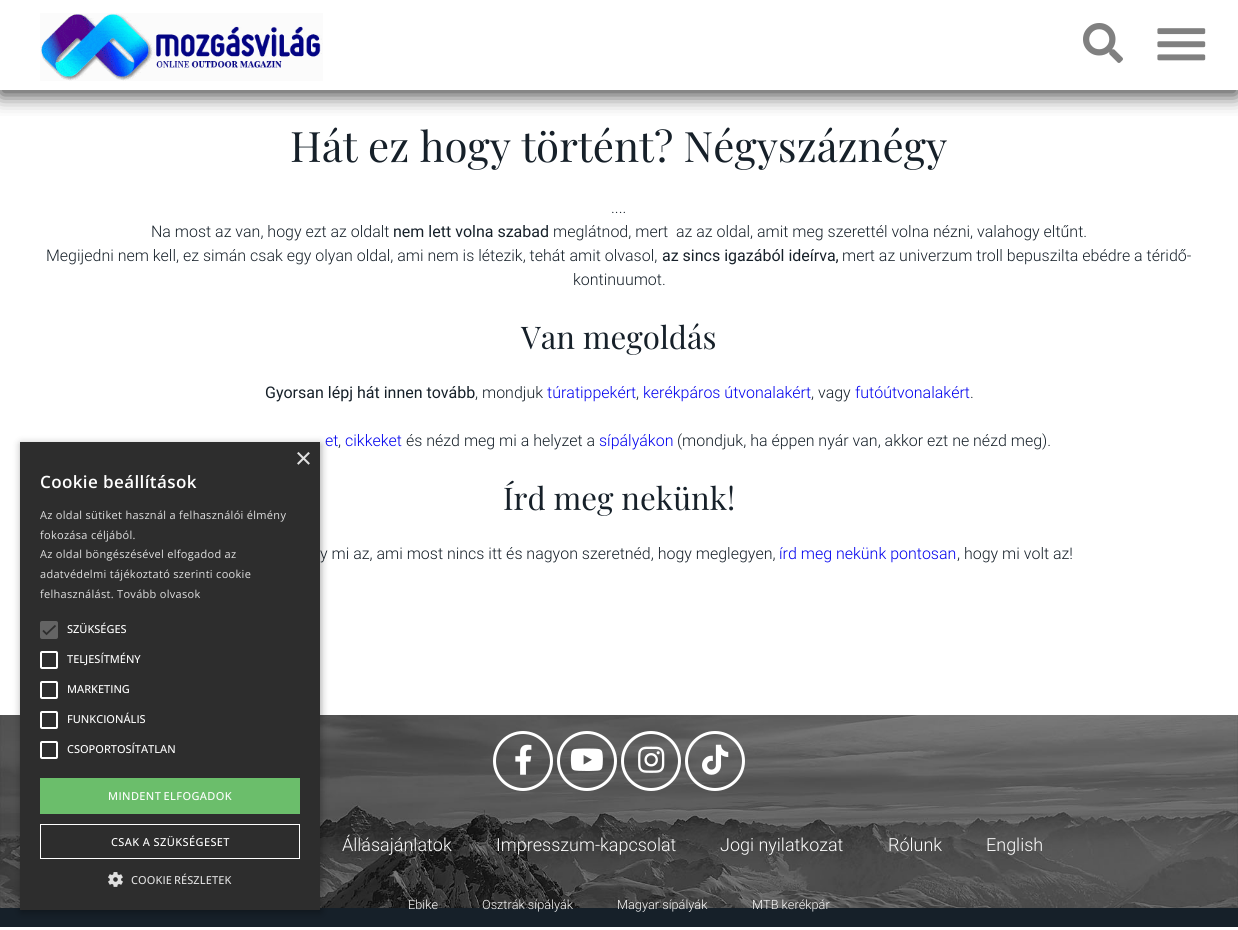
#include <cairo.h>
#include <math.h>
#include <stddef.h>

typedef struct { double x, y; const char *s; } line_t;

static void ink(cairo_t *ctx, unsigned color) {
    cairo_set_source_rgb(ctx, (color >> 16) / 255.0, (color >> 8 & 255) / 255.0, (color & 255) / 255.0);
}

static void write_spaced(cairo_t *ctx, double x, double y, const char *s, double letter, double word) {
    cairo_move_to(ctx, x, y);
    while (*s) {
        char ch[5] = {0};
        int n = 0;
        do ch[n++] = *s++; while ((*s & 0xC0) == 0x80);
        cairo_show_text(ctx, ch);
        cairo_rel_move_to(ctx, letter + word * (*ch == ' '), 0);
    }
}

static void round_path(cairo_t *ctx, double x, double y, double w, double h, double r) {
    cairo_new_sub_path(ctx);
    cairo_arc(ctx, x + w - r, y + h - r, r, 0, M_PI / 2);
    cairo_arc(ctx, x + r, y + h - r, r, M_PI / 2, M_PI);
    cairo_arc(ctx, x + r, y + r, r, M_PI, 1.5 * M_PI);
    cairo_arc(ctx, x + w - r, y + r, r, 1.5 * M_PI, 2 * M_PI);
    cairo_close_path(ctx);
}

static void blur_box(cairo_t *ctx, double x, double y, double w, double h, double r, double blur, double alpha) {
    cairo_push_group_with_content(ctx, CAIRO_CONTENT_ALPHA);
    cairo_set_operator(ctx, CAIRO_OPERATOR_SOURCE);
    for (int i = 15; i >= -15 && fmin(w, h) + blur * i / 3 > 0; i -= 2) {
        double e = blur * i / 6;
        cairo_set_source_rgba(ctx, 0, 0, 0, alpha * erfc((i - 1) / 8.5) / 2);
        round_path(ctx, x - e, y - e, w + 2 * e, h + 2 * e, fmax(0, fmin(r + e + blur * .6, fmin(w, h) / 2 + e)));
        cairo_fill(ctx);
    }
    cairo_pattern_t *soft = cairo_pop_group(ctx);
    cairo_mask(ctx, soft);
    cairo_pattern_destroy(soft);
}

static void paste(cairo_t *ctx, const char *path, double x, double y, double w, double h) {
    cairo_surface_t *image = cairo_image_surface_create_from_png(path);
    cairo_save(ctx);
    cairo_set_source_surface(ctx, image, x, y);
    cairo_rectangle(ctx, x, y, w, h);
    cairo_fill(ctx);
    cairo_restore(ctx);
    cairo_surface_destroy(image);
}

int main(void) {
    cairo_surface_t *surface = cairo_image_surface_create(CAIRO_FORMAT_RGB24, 1238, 930);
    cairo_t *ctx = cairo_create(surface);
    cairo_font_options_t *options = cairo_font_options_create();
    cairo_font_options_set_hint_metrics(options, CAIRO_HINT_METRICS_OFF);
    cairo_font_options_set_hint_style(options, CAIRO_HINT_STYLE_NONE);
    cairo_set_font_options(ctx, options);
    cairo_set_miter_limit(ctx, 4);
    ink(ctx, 0xFFFFFF);
    cairo_paint(ctx);
    cairo_save(ctx);
    cairo_rectangle(ctx, 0, 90, 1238, 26);
    cairo_clip(ctx);
    ink(ctx, 0x404040);
    blur_box(ctx, 0, 5, 1238, 90, 0, 10, 1);
    cairo_restore(ctx);
    paste(ctx, "media/1.png", 40, 13, 283, 68);
    paste(ctx, "media/2.png", 1083, 23, 40, 40);
    paste(ctx, "media/3.png", 1157, 28, 49, 33);
    cairo_select_font_face(ctx, "Playfair Display", CAIRO_FONT_SLANT_NORMAL, CAIRO_FONT_WEIGHT_NORMAL);
    cairo_set_font_size(ctx, 42);
    ink(ctx, 0x162029);
    cairo_move_to(ctx, 290, 162);
    cairo_show_text(ctx, "Hát ez hogy történt? Négyszáznégy");
    cairo_select_font_face(ctx, "Roboto Light", CAIRO_FONT_SLANT_NORMAL, CAIRO_FONT_WEIGHT_NORMAL);
    cairo_set_font_size(ctx, 16);
    cairo_move_to(ctx, 611, 213);
    cairo_show_text(ctx, "....");
    cairo_move_to(ctx, 151, 237);
    cairo_show_text(ctx, "Na most az van, hogy ezt az oldalt");
    cairo_select_font_face(ctx, "Roboto", CAIRO_FONT_SLANT_NORMAL, CAIRO_FONT_WEIGHT_NORMAL);
    cairo_move_to(ctx, 393, 237);
    cairo_show_text(ctx, "nem lett volna szabad");
    cairo_select_font_face(ctx, "Roboto Light", CAIRO_FONT_SLANT_NORMAL, CAIRO_FONT_WEIGHT_NORMAL);
    cairo_move_to(ctx, 553, 237);
    cairo_show_text(ctx, "meglátnod, mert  az az oldal, amit meg szerettél volna nézni, valahogy eltűnt.");
    cairo_move_to(ctx, 46, 261);
    cairo_show_text(ctx, "Megijedni nem kell, ez simán csak egy olyan oldal, ami nem is létezik, tehát amit olvasol,");
    cairo_select_font_face(ctx, "Roboto", CAIRO_FONT_SLANT_NORMAL, CAIRO_FONT_WEIGHT_NORMAL);
    cairo_move_to(ctx, 662, 261);
    cairo_show_text(ctx, "az sincs igazából ideírva,");
    cairo_select_font_face(ctx, "Roboto Light", CAIRO_FONT_SLANT_NORMAL, CAIRO_FONT_WEIGHT_NORMAL);
    cairo_move_to(ctx, 842, 261);
    cairo_show_text(ctx, "mert az univerzum troll bepuszilta ebédre a téridő-");
    cairo_move_to(ctx, 573, 285);
    cairo_show_text(ctx, "kontinuumot.");
    cairo_select_font_face(ctx, "Playfair Display", CAIRO_FONT_SLANT_NORMAL, CAIRO_FONT_WEIGHT_NORMAL);
    cairo_set_font_size(ctx, 31.25);
    cairo_move_to(ctx, 521, 349);
    cairo_show_text(ctx, "Van megoldás");
    cairo_select_font_face(ctx, "Roboto", CAIRO_FONT_SLANT_NORMAL, CAIRO_FONT_WEIGHT_NORMAL);
    cairo_set_font_size(ctx, 16);
    cairo_move_to(ctx, 265, 398);
    cairo_show_text(ctx, "Gyorsan lépj hát innen tovább");
    cairo_select_font_face(ctx, "Roboto Light", CAIRO_FONT_SLANT_NORMAL, CAIRO_FONT_WEIGHT_NORMAL);
    cairo_move_to(ctx, 475, 398);
    cairo_show_text(ctx, ", mondjuk");
    ink(ctx, 0x0000EE);
    cairo_move_to(ctx, 547, 398);
    cairo_show_text(ctx, "túratippekért");
    ink(ctx, 0x162029);
    cairo_move_to(ctx, 636, 398);
    cairo_show_text(ctx, ",");
    ink(ctx, 0x0000EE);
    cairo_move_to(ctx, 643, 398);
    cairo_show_text(ctx, "kerékpáros útvonalakért");
    ink(ctx, 0x162029);
    cairo_move_to(ctx, 811, 398);
    cairo_show_text(ctx, ", vagy");
    ink(ctx, 0x0000EE);
    cairo_move_to(ctx, 855, 398);
    cairo_show_text(ctx, "futóútvonalakért");
    ink(ctx, 0x162029);
    cairo_move_to(ctx, 970, 398);
    cairo_show_text(ctx, ".");
    ink(ctx, 0x0000EE);
    cairo_move_to(ctx, 325, 446);
    cairo_show_text(ctx, "et");
    ink(ctx, 0x162029);
    cairo_move_to(ctx, 338, 446);
    cairo_show_text(ctx, ",");
    ink(ctx, 0x0000EE);
    cairo_move_to(ctx, 345, 446);
    cairo_show_text(ctx, "cikkeket");
    ink(ctx, 0x162029);
    cairo_move_to(ctx, 406, 446);
    cairo_show_text(ctx, "és nézd meg mi a helyzet a");
    ink(ctx, 0x0000EE);
    cairo_move_to(ctx, 599, 446);
    cairo_show_text(ctx, "sípályákon");
    ink(ctx, 0x162029);
    cairo_move_to(ctx, 677, 446);
    cairo_show_text(ctx, "(mondjuk, ha éppen nyár van, akkor ezt ne nézd meg).");
    cairo_select_font_face(ctx, "Playfair Display", CAIRO_FONT_SLANT_NORMAL, CAIRO_FONT_WEIGHT_NORMAL);
    cairo_set_font_size(ctx, 31.25);
    cairo_move_to(ctx, 503, 510);
    cairo_show_text(ctx, "Írd meg nekünk!");
    cairo_select_font_face(ctx, "Roboto Light", CAIRO_FONT_SLANT_NORMAL, CAIRO_FONT_WEIGHT_NORMAL);
    cairo_set_font_size(ctx, 16);
    cairo_move_to(ctx, 320, 559);
    cairo_show_text(ctx, "y mi az, ami most nincs itt és nagyon szeretnéd, hogy meglegyen,");
    ink(ctx, 0x0000EE);
    cairo_move_to(ctx, 779, 559);
    cairo_show_text(ctx, "írd meg nekünk pontosan");
    ink(ctx, 0x162029);
    cairo_move_to(ctx, 957, 559);
    cairo_show_text(ctx, ", hogy mi volt az!");
    cairo_rectangle(ctx, 0, 908, 1238, 19);
    cairo_fill(ctx);
    paste(ctx, "media/5.png", 0, 715, 1238, 193);
    ink(ctx, 0x000000);
    blur_box(ctx, 21, 444, 300, 468, 0, 4, 0.35);
    ink(ctx, 0x2D2D2D);
    cairo_rectangle(ctx, 20, 442, 300, 468);
    cairo_fill(ctx);
    cairo_select_font_face(ctx, "Liberation Sans", CAIRO_FONT_SLANT_NORMAL, CAIRO_FONT_WEIGHT_NORMAL);
    cairo_set_font_size(ctx, 29);
    ink(ctx, 0xE0E0E0);
    cairo_move_to(ctx, 295, 468);
    cairo_show_text(ctx, "×");
    cairo_select_font_face(ctx, "Open Sans SemiBold", CAIRO_FONT_SLANT_NORMAL, CAIRO_FONT_WEIGHT_NORMAL);
    cairo_set_font_size(ctx, 17);
    ink(ctx, 0xFFFFFF);
    write_spaced(ctx, 40, 488, "Cookie beállítások", 0.4, 0);
    cairo_select_font_face(ctx, "Open Sans", CAIRO_FONT_SLANT_NORMAL, CAIRO_FONT_WEIGHT_NORMAL);
    cairo_set_font_size(ctx, 11);
    ink(ctx, 0xE0E0E0);
    {
        static const line_t items[] = {
            {40, 519, "Az oldal sütiket használ a felhasználói élmény"},
            {40, 539, "fokozása céljából."},
            {40, 558, "Az oldal böngészésével elfogadod az"},
            {40, 578, "adatvédelmi tájékoztató szerinti cookie"},
            {40, 598, "felhasználást. Tovább olvasok"},
        };
        for (size_t i = 0; i < sizeof items / sizeof *items; i++) {
            write_spaced(ctx, items[i].x, items[i].y, items[i].s, 0.3, 0);
        }
    }
    ink(ctx, 0x646464);
    round_path(ctx, 40, 621, 18, 18, 2);
    cairo_fill(ctx);
    cairo_new_path(ctx);
    cairo_move_to(ctx, 43, 630.5);
    cairo_line_to(ctx, 46.5, 634);
    cairo_line_to(ctx, 55.5, 625.5);
    ink(ctx, 0x2D2D2D);
    cairo_set_line_width(ctx, 1.8);
    cairo_stroke(ctx);
    cairo_select_font_face(ctx, "Open Sans Medium", CAIRO_FONT_SLANT_NORMAL, CAIRO_FONT_WEIGHT_NORMAL);
    ink(ctx, 0xFFFFFF);
    cairo_move_to(ctx, 67, 633);
    cairo_show_text(ctx, "SZÜKSÉGES");
    round_path(ctx, 41, 652, 16, 16, 1);
    cairo_set_line_width(ctx, 2);
    cairo_stroke(ctx);
    cairo_move_to(ctx, 67, 663);
    cairo_show_text(ctx, "TELJESÍTMÉNY");
    round_path(ctx, 41, 682, 16, 16, 1);
    cairo_stroke(ctx);
    cairo_move_to(ctx, 67, 693);
    cairo_show_text(ctx, "MARKETING");
    round_path(ctx, 41, 712, 16, 16, 1);
    cairo_stroke(ctx);
    cairo_move_to(ctx, 67, 723);
    cairo_show_text(ctx, "FUNKCIONÁLIS");
    round_path(ctx, 41, 742, 16, 16, 1);
    cairo_stroke(ctx);
    cairo_move_to(ctx, 67, 753);
    cairo_show_text(ctx, "CSOPORTOSÍTATLAN");
    ink(ctx, 0x6BBE6B);
    cairo_rectangle(ctx, 40, 778, 260, 36);
    cairo_fill(ctx);
    ink(ctx, 0xFFFFFF);
    write_spaced(ctx, 108, 800, "MINDENT ELFOGADOK", 0.4, -1);
    cairo_rectangle(ctx, 40.5, 824.5, 259, 34);
    cairo_set_line_width(ctx, 1);
    cairo_stroke(ctx);
    write_spaced(ctx, 111, 846, "CSAK A SZÜKSÉGESET", 0.4, 0);
    paste(ctx, "media/4.png", 108, 872, 15, 15);
    ink(ctx, 0xE0E0E0);
    write_spaced(ctx, 131, 884, "COOKIE RÉSZLETEK", 0.1, -1);
    cairo_new_path(ctx);
    cairo_arc(ctx, 523, 761, 28.5, 0, 2 * M_PI);
    ink(ctx, 0xFFFFFF);
    cairo_set_line_width(ctx, 3);
    cairo_stroke(ctx);
    paste(ctx, "media/6.png", 515, 744, 17, 31);
    cairo_arc(ctx, 587, 761, 28.5, 0, 2 * M_PI);
    cairo_stroke(ctx);
    paste(ctx, "media/7.png", 570, 748, 33, 23);
    cairo_arc(ctx, 651, 761, 28.5, 0, 2 * M_PI);
    cairo_stroke(ctx);
    paste(ctx, "media/8.png", 638, 746, 27, 27);
    cairo_arc(ctx, 715, 761, 28.5, 0, 2 * M_PI);
    cairo_stroke(ctx);
    paste(ctx, "media/9.png", 702, 744, 27, 31);
    cairo_select_font_face(ctx, "Roboto Light", CAIRO_FONT_SLANT_NORMAL, CAIRO_FONT_WEIGHT_NORMAL);
    cairo_set_font_size(ctx, 18);
    {
        static const line_t items[] = {
            {342, 851, "Állásajánlatok"},
            {496, 851, "Impresszum-kapcsolat"},
            {720, 851, "Jogi nyilatkozat"},
            {888, 851, "Rólunk"},
            {986, 851, "English"},
        };
        for (size_t i = 0; i < sizeof items / sizeof *items; i++) {
            cairo_move_to(ctx, items[i].x, items[i].y);
            cairo_show_text(ctx, items[i].s);
        }
    }
    cairo_set_font_size(ctx, 12.75);
    {
        static const line_t items[] = {
            {408, 909, "Ebike"},
            {482, 909, "Osztrák sípályák"},
            {617, 909, "Magyar sípályák"},
            {752, 909, "MTB kerékpár"},
        };
        for (size_t i = 0; i < sizeof items / sizeof *items; i++) {
            cairo_move_to(ctx, items[i].x, items[i].y);
            cairo_show_text(ctx, items[i].s);
        }
    }
    cairo_surface_write_to_png(surface, "image.png");
    cairo_font_options_destroy(options);
    cairo_destroy(ctx);
    cairo_surface_destroy(surface);
    return 0;
}
